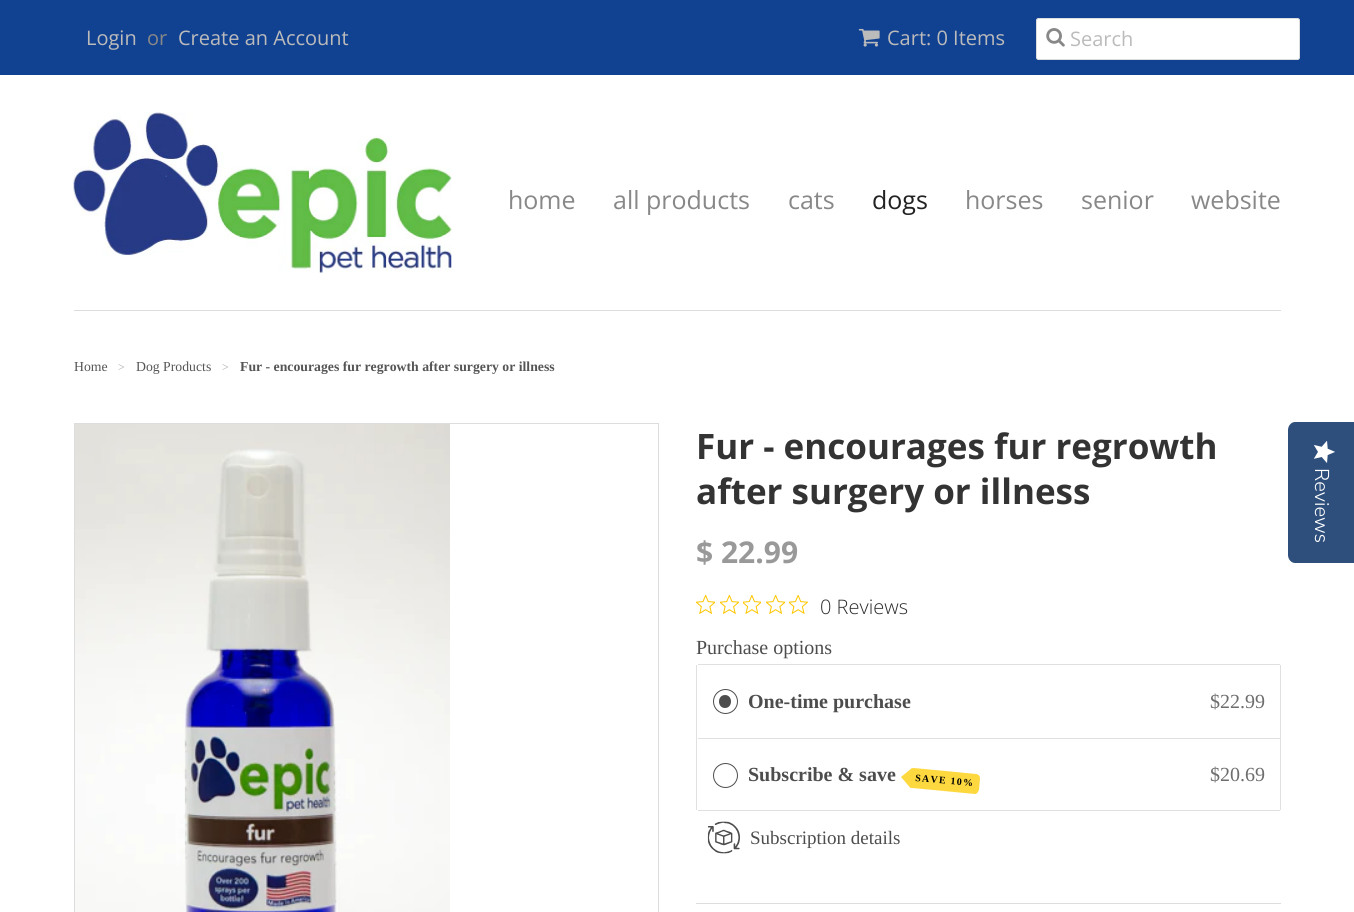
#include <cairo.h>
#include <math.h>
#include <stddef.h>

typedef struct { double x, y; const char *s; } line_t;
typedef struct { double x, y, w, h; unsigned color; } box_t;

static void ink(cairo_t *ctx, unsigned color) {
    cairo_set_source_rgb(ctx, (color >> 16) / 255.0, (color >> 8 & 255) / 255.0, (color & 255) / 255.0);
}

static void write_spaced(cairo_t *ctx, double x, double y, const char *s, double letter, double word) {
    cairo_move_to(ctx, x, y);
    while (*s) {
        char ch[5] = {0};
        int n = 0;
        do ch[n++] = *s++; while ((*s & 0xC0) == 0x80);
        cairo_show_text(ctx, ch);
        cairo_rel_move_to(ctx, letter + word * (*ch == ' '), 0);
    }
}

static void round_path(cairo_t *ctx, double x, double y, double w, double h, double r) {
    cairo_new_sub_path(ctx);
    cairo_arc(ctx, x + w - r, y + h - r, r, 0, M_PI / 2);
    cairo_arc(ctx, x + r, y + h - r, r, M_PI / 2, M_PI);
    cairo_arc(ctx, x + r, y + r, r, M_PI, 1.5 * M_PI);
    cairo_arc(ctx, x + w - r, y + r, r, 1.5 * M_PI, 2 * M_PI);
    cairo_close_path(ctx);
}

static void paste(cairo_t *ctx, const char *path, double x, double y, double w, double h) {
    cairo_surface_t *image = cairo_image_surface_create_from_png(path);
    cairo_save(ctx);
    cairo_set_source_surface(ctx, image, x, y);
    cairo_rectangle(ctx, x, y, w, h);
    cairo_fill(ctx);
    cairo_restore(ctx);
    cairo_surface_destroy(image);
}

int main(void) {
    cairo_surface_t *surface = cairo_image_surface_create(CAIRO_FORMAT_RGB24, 1354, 912);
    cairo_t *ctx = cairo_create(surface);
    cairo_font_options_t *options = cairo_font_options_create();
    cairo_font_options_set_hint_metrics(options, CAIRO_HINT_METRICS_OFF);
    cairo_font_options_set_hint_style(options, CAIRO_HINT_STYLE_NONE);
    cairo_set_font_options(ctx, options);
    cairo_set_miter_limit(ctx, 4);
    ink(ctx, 0xFFFFFF);
    cairo_paint(ctx);
    ink(ctx, 0x114191);
    cairo_rectangle(ctx, 0, 0, 1354, 75);
    cairo_fill(ctx);
    cairo_select_font_face(ctx, "Open Sans", CAIRO_FONT_SLANT_NORMAL, CAIRO_FONT_WEIGHT_NORMAL);
    cairo_set_font_size(ctx, 20);
    ink(ctx, 0xBBBBBB);
    cairo_move_to(ctx, 86, 45);
    cairo_show_text(ctx, "Login");
    ink(ctx, 0x888888);
    cairo_move_to(ctx, 147, 45);
    cairo_show_text(ctx, "or");
    ink(ctx, 0xBBBBBB);
    cairo_move_to(ctx, 178, 45);
    cairo_show_text(ctx, "Create an Account");
    paste(ctx, "media/1.png", 858, 28, 22, 19);
    cairo_move_to(ctx, 887, 45);
    cairo_show_text(ctx, "Cart: 0 Items");
    ink(ctx, 0xFFFFFF);
    round_path(ctx, 1036.5, 18.5, 263, 41, 2);
    cairo_fill_preserve(ctx);
    ink(ctx, 0xDDDDDD);
    cairo_set_line_width(ctx, 1);
    cairo_stroke(ctx);
    paste(ctx, "media/2.png", 1046, 28, 19, 19);
    ink(ctx, 0xBBBBBB);
    cairo_move_to(ctx, 1070, 46);
    cairo_show_text(ctx, "Search");
    ink(ctx, 0xDDDDDD);
    cairo_rectangle(ctx, 74, 310, 1207, 1);
    cairo_fill(ctx);
    paste(ctx, "media/3.png", 73, 112, 379, 161);
    cairo_set_font_size(ctx, 25);
    ink(ctx, 0x888888);
    {
        static const line_t items[] = {
            {508, 209, "home"},
            {613, 209, "all products"},
            {788, 209, "cats"},
        };
        for (size_t i = 0; i < sizeof items / sizeof *items; i++) {
            cairo_move_to(ctx, items[i].x, items[i].y);
            cairo_show_text(ctx, items[i].s);
        }
    }
    ink(ctx, 0x222222);
    cairo_move_to(ctx, 872, 209);
    cairo_show_text(ctx, "dogs");
    ink(ctx, 0x888888);
    {
        static const line_t items[] = {
            {965, 209, "horses"},
            {1081, 209, "senior"},
            {1191, 209, "website"},
        };
        for (size_t i = 0; i < sizeof items / sizeof *items; i++) {
            cairo_move_to(ctx, items[i].x, items[i].y);
            cairo_show_text(ctx, items[i].s);
        }
    }
    cairo_select_font_face(ctx, "Liberation Serif", CAIRO_FONT_SLANT_NORMAL, CAIRO_FONT_WEIGHT_NORMAL);
    cairo_set_font_size(ctx, 13.75);
    ink(ctx, 0x555555);
    cairo_move_to(ctx, 74, 371);
    cairo_show_text(ctx, "Home");
    cairo_set_font_size(ctx, 12);
    ink(ctx, 0xAAAAAA);
    cairo_move_to(ctx, 118, 371);
    cairo_show_text(ctx, ">");
    cairo_set_font_size(ctx, 13.75);
    ink(ctx, 0x555555);
    cairo_move_to(ctx, 136, 371);
    cairo_show_text(ctx, "Dog Products");
    cairo_set_font_size(ctx, 12);
    ink(ctx, 0xAAAAAA);
    cairo_move_to(ctx, 222, 371);
    cairo_show_text(ctx, ">");
    cairo_select_font_face(ctx, "Liberation Serif", CAIRO_FONT_SLANT_NORMAL, CAIRO_FONT_WEIGHT_BOLD);
    cairo_set_font_size(ctx, 13.75);
    ink(ctx, 0x555555);
    cairo_move_to(ctx, 240, 371);
    cairo_show_text(ctx, "Fur - encourages fur regrowth after surgery or illness");
    cairo_rectangle(ctx, 74.5, 423.5, 584, 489);
    ink(ctx, 0xDDDDDD);
    cairo_stroke(ctx);
    paste(ctx, "media/4.png", 75, 424, 375, 488);
    cairo_select_font_face(ctx, "Open Sans", CAIRO_FONT_SLANT_NORMAL, CAIRO_FONT_WEIGHT_BOLD);
    cairo_set_font_size(ctx, 35);
    ink(ctx, 0x333333);
    cairo_move_to(ctx, 696, 459);
    cairo_show_text(ctx, "Fur - encourages fur regrowth");
    cairo_move_to(ctx, 696, 504);
    cairo_show_text(ctx, "after surgery or illness");
    cairo_set_font_size(ctx, 30);
    ink(ctx, 0x999999);
    cairo_move_to(ctx, 696, 563);
    cairo_show_text(ctx, "$ 22.99");
    paste(ctx, "media/5.png", 696, 595, 19, 19);
    paste(ctx, "media/6.png", 720, 595, 19, 19);
    paste(ctx, "media/7.png", 743, 595, 18, 19);
    paste(ctx, "media/5.png", 766, 595, 19, 19);
    paste(ctx, "media/8.png", 789, 595, 19, 19);
    cairo_select_font_face(ctx, "Open Sans Light", CAIRO_FONT_SLANT_NORMAL, CAIRO_FONT_WEIGHT_NORMAL);
    cairo_set_font_size(ctx, 20);
    ink(ctx, 0x2C2C2C);
    cairo_move_to(ctx, 820, 614);
    cairo_show_text(ctx, "0 Reviews");
    cairo_select_font_face(ctx, "Liberation Serif", CAIRO_FONT_SLANT_NORMAL, CAIRO_FONT_WEIGHT_NORMAL);
    ink(ctx, 0x4D4D4D);
    cairo_move_to(ctx, 696, 654);
    cairo_show_text(ctx, "Purchase options");
    {
        static const box_t items[] = {
            {698, 664, 582, 1, 0xE0E0E0},
            {1280, 665, 1, 145, 0xE0E0E0},
            {696, 665, 1, 145, 0xE0E0E0},
            {698, 738, 582, 1, 0xE0E0E0},
        };
        for (size_t i = 0; i < sizeof items / sizeof *items; i++) {
            ink(ctx, items[i].color);
            cairo_rectangle(ctx, items[i].x, items[i].y, items[i].w, items[i].h);
            cairo_fill(ctx);
        }
    }
    cairo_new_path(ctx);
    cairo_arc(ctx, 725.5, 701.5, 12, 0, 2 * M_PI);
    ink(ctx, 0x4D4D4D);
    cairo_stroke(ctx);
    cairo_new_path(ctx);
    cairo_move_to(ctx, 725, 695);
    cairo_curve_to(ctx, 717, 695, 717, 708, 725, 708);
    cairo_curve_to(ctx, 733, 708, 733, 695, 725, 695);
    cairo_close_path(ctx);
    cairo_fill(ctx);
    cairo_select_font_face(ctx, "Liberation Serif", CAIRO_FONT_SLANT_NORMAL, CAIRO_FONT_WEIGHT_BOLD);
    cairo_move_to(ctx, 748, 708);
    cairo_show_text(ctx, "One-time purchase");
    cairo_select_font_face(ctx, "Liberation Serif", CAIRO_FONT_SLANT_NORMAL, CAIRO_FONT_WEIGHT_NORMAL);
    ink(ctx, 0x6D6D6D);
    cairo_move_to(ctx, 1210, 708);
    cairo_show_text(ctx, "$22.99");
    ink(ctx, 0xE0E0E0);
    cairo_rectangle(ctx, 698, 810, 582, 1);
    cairo_fill(ctx);
    cairo_arc(ctx, 725.5, 775.5, 12, 0, 2 * M_PI);
    ink(ctx, 0x4D4D4D);
    cairo_stroke(ctx);
    cairo_select_font_face(ctx, "Liberation Serif", CAIRO_FONT_SLANT_NORMAL, CAIRO_FONT_WEIGHT_BOLD);
    cairo_move_to(ctx, 748, 781);
    cairo_show_text(ctx, "Subscribe & save");
    ink(ctx, 0xFED83F);
    cairo_new_path(ctx);
    cairo_move_to(ctx, 914, 768);
    cairo_line_to(ctx, 976, 774);
    cairo_curve_to(ctx, 978, 774, 980, 776, 980, 778);
    cairo_line_to(ctx, 979, 790);
    cairo_curve_to(ctx, 978, 792, 977, 794, 975, 794);
    cairo_line_to(ctx, 912, 788);
    cairo_curve_to(ctx, 910, 788, 909, 787, 910, 785);
    cairo_line_to(ctx, 911, 770);
    cairo_curve_to(ctx, 911, 769, 912, 768, 914, 768);
    cairo_close_path(ctx);
    cairo_fill(ctx);
    cairo_new_path(ctx);
    cairo_move_to(ctx, 901, 777);
    cairo_line_to(ctx, 910.5, 788);
    cairo_line_to(ctx, 912.5, 768);
    cairo_line_to(ctx, 912, 768);
    cairo_close_path(ctx);
    cairo_fill(ctx);
    cairo_set_font_size(ctx, 10);
    ink(ctx, 0x000000);
    cairo_save(ctx);
    cairo_translate(ctx, 915, 781);
    cairo_rotate(ctx, 5 * M_PI / 180);
    write_spaced(ctx, 0, 0, "SAVE 10%", 1.25, 0);
    cairo_restore(ctx);
    cairo_select_font_face(ctx, "Liberation Serif", CAIRO_FONT_SLANT_NORMAL, CAIRO_FONT_WEIGHT_NORMAL);
    cairo_set_font_size(ctx, 20);
    ink(ctx, 0x6D6D6D);
    cairo_move_to(ctx, 1210, 781);
    cairo_show_text(ctx, "$20.69");
    paste(ctx, "media/9.png", 707, 821, 33, 33);
    cairo_set_font_size(ctx, 19);
    ink(ctx, 0x4D4D4D);
    cairo_move_to(ctx, 750, 844);
    cairo_show_text(ctx, "Subscription details");
    ink(ctx, 0xDDDDDD);
    cairo_rectangle(ctx, 696, 903, 585, 1);
    cairo_fill(ctx);
    ink(ctx, 0x2E4F7C);
    cairo_new_path(ctx);
    cairo_move_to(ctx, 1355, 422);
    cairo_line_to(ctx, 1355, 563);
    cairo_line_to(ctx, 1295, 563);
    cairo_curve_to(ctx, 1291, 563, 1288, 559, 1288, 555);
    cairo_line_to(ctx, 1288, 430);
    cairo_curve_to(ctx, 1288, 426, 1291, 422, 1295, 422);
    cairo_close_path(ctx);
    cairo_fill(ctx);
    paste(ctx, "media/10.png", 1313, 441, 22, 22);
    cairo_select_font_face(ctx, "Nunito Sans Light", CAIRO_FONT_SLANT_NORMAL, CAIRO_FONT_WEIGHT_NORMAL);
    cairo_set_font_size(ctx, 20);
    ink(ctx, 0xFFFFFF);
    cairo_save(ctx);
    cairo_translate(ctx, 1315, 468);
    cairo_rotate(ctx, 90 * M_PI / 180);
    cairo_move_to(ctx, 0, 0);
    cairo_show_text(ctx, "Reviews");
    cairo_restore(ctx);
    cairo_surface_write_to_png(surface, "image.png");
    cairo_font_options_destroy(options);
    cairo_destroy(ctx);
    cairo_surface_destroy(surface);
    return 0;
}
